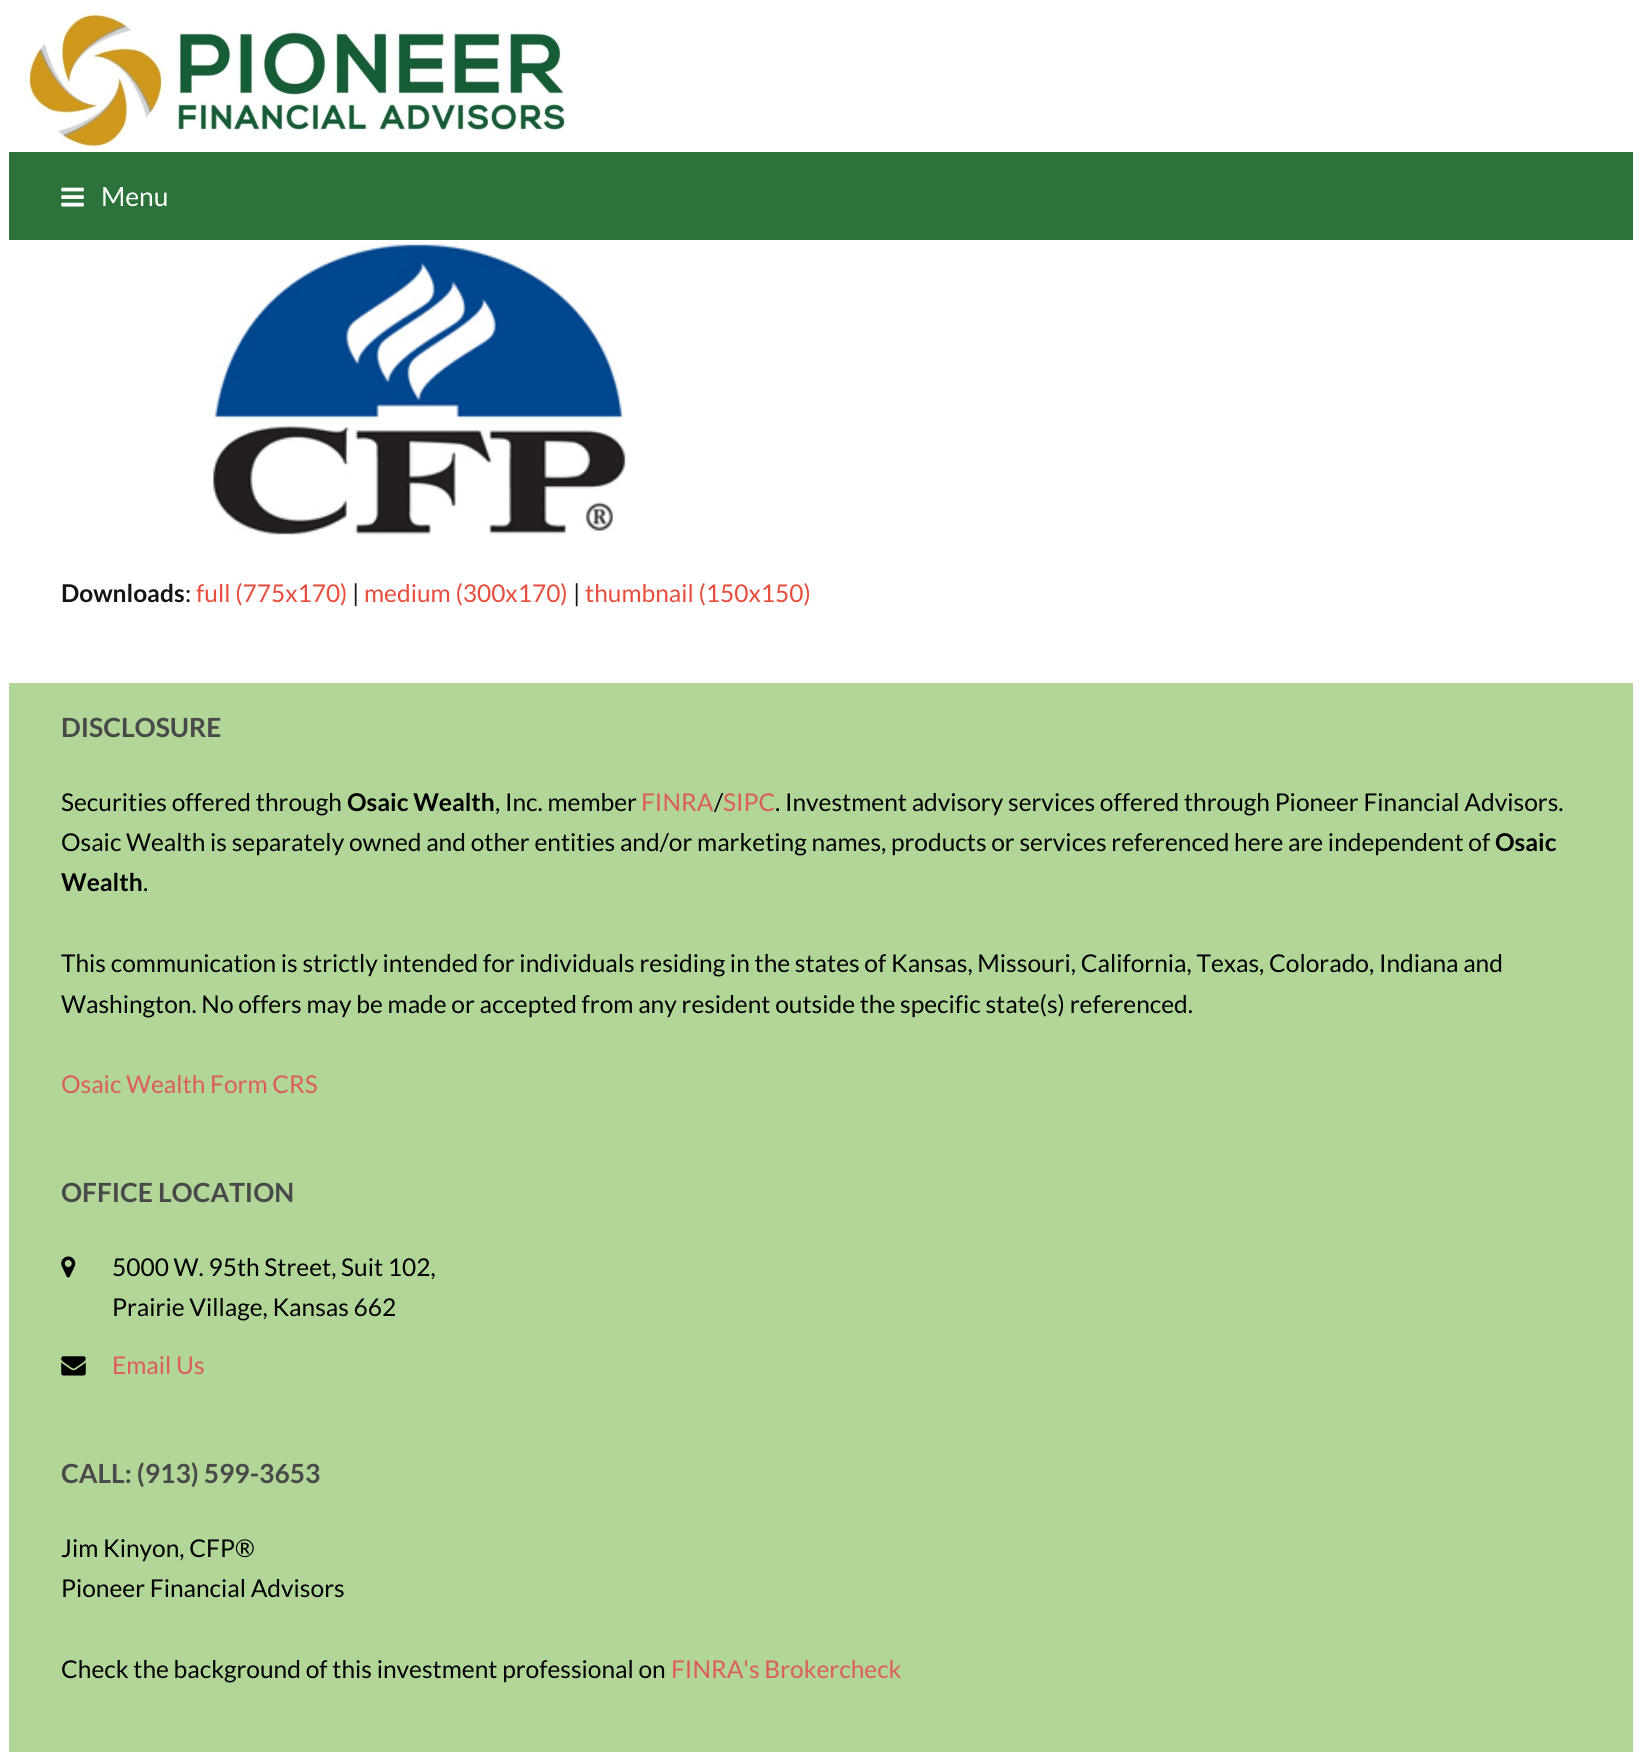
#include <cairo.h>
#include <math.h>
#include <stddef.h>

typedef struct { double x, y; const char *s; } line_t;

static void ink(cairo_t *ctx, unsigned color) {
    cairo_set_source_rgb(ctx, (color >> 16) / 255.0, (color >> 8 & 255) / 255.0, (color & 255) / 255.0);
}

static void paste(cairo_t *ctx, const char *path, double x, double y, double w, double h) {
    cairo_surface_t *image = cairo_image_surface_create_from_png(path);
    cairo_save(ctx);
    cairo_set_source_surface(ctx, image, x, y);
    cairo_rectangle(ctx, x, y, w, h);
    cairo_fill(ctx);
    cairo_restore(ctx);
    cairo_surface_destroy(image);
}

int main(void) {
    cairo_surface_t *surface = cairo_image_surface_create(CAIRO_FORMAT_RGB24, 1641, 1752);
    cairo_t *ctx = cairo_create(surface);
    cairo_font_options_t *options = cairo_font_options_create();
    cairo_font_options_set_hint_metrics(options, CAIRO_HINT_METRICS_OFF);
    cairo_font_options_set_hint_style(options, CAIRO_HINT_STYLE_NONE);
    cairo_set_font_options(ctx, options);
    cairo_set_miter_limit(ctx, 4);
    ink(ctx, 0xFFFFFF);
    cairo_paint(ctx);
    paste(ctx, "media/1.png", 28, 12, 538, 136);
    ink(ctx, 0x2B723B);
    cairo_rectangle(ctx, 9, 152, 1624, 88);
    cairo_fill(ctx);
    paste(ctx, "media/2.png", 61, 187, 23, 20);
    cairo_select_font_face(ctx, "Lato", CAIRO_FONT_SLANT_NORMAL, CAIRO_FONT_WEIGHT_NORMAL);
    cairo_set_font_size(ctx, 26.4);
    ink(ctx, 0xFFFFFF);
    cairo_move_to(ctx, 101, 206);
    cairo_show_text(ctx, "Menu");
    paste(ctx, "media/3.png", 213, 244, 413, 291);
    cairo_select_font_face(ctx, "Lato", CAIRO_FONT_SLANT_NORMAL, CAIRO_FONT_WEIGHT_BOLD);
    cairo_set_font_size(ctx, 24.5);
    ink(ctx, 0x141414);
    cairo_move_to(ctx, 61, 602);
    cairo_show_text(ctx, "Downloads");
    cairo_select_font_face(ctx, "Lato", CAIRO_FONT_SLANT_NORMAL, CAIRO_FONT_WEIGHT_NORMAL);
    cairo_move_to(ctx, 185, 602);
    cairo_show_text(ctx, ":");
    ink(ctx, 0xE74C3C);
    cairo_move_to(ctx, 196, 602);
    cairo_show_text(ctx, "full (775x170)");
    ink(ctx, 0x141414);
    cairo_move_to(ctx, 352, 602);
    cairo_show_text(ctx, "|");
    ink(ctx, 0xE74C3C);
    cairo_move_to(ctx, 364, 602);
    cairo_show_text(ctx, "medium (300x170)");
    ink(ctx, 0x141414);
    cairo_move_to(ctx, 573, 602);
    cairo_show_text(ctx, "|");
    ink(ctx, 0xE74C3C);
    cairo_move_to(ctx, 585, 602);
    cairo_show_text(ctx, "thumbnail (150x150)");
    ink(ctx, 0xB1D698);
    cairo_rectangle(ctx, 9, 683, 1624, 1069);
    cairo_fill(ctx);
    cairo_select_font_face(ctx, "Lato", CAIRO_FONT_SLANT_NORMAL, CAIRO_FONT_WEIGHT_BOLD);
    cairo_set_font_size(ctx, 26.4);
    ink(ctx, 0x494949);
    cairo_move_to(ctx, 61, 737);
    cairo_show_text(ctx, "DISCLOSURE");
    cairo_select_font_face(ctx, "Lato", CAIRO_FONT_SLANT_NORMAL, CAIRO_FONT_WEIGHT_NORMAL);
    cairo_set_font_size(ctx, 24.5);
    ink(ctx, 0x000000);
    cairo_move_to(ctx, 61, 811);
    cairo_show_text(ctx, "Securities offered through");
    cairo_select_font_face(ctx, "Lato", CAIRO_FONT_SLANT_NORMAL, CAIRO_FONT_WEIGHT_BOLD);
    cairo_move_to(ctx, 347, 811);
    cairo_show_text(ctx, "Osaic Wealth");
    cairo_select_font_face(ctx, "Lato", CAIRO_FONT_SLANT_NORMAL, CAIRO_FONT_WEIGHT_NORMAL);
    cairo_move_to(ctx, 495, 811);
    cairo_show_text(ctx, ", Inc. member");
    ink(ctx, 0xDD5D5D);
    cairo_move_to(ctx, 641, 811);
    cairo_show_text(ctx, "FINRA");
    ink(ctx, 0x000000);
    cairo_move_to(ctx, 714, 811);
    cairo_show_text(ctx, "/");
    ink(ctx, 0xDD5D5D);
    cairo_move_to(ctx, 723, 811);
    cairo_show_text(ctx, "SIPC");
    ink(ctx, 0x000000);
    cairo_move_to(ctx, 775, 811);
    cairo_show_text(ctx, ". Investment advisory services offered through Pioneer Financial Advisors.");
    cairo_move_to(ctx, 61, 851);
    cairo_show_text(ctx, "Osaic Wealth is separately owned and other entities and/or marketing names, products or services referenced here are independent of");
    cairo_select_font_face(ctx, "Lato", CAIRO_FONT_SLANT_NORMAL, CAIRO_FONT_WEIGHT_BOLD);
    cairo_move_to(ctx, 1495, 851);
    cairo_show_text(ctx, "Osaic");
    cairo_move_to(ctx, 61, 891);
    cairo_show_text(ctx, "Wealth");
    cairo_select_font_face(ctx, "Lato", CAIRO_FONT_SLANT_NORMAL, CAIRO_FONT_WEIGHT_NORMAL);
    {
        static const line_t items[] = {
            {143, 891, "."},
            {61, 972, "This communication is strictly intended for individuals residing in the states of Kansas, Missouri, California, Texas, Colorado, Indiana and"},
            {61, 1013, "Washington. No offers may be made or accepted from any resident outside the specific state(s) referenced."},
        };
        for (size_t i = 0; i < sizeof items / sizeof *items; i++) {
            cairo_move_to(ctx, items[i].x, items[i].y);
            cairo_show_text(ctx, items[i].s);
        }
    }
    ink(ctx, 0xDD5D5D);
    cairo_move_to(ctx, 61, 1093);
    cairo_show_text(ctx, "Osaic Wealth Form CRS");
    cairo_select_font_face(ctx, "Lato", CAIRO_FONT_SLANT_NORMAL, CAIRO_FONT_WEIGHT_BOLD);
    cairo_set_font_size(ctx, 26.4);
    ink(ctx, 0x494949);
    cairo_move_to(ctx, 61, 1202);
    cairo_show_text(ctx, "OFFICE LOCATION");
    paste(ctx, "media/4.png", 61, 1256, 15, 22);
    cairo_select_font_face(ctx, "Lato", CAIRO_FONT_SLANT_NORMAL, CAIRO_FONT_WEIGHT_NORMAL);
    cairo_set_font_size(ctx, 24.5);
    ink(ctx, 0x000000);
    cairo_move_to(ctx, 112, 1276);
    cairo_show_text(ctx, "5000 W. 95th Street, Suit 102,");
    cairo_move_to(ctx, 112, 1316);
    cairo_show_text(ctx, "Prairie Village, Kansas 662");
    paste(ctx, "media/5.png", 61, 1356, 25, 20);
    ink(ctx, 0xDD5D5D);
    cairo_move_to(ctx, 112, 1374);
    cairo_show_text(ctx, "Email Us");
    cairo_select_font_face(ctx, "Lato", CAIRO_FONT_SLANT_NORMAL, CAIRO_FONT_WEIGHT_BOLD);
    cairo_set_font_size(ctx, 26.4);
    ink(ctx, 0x494949);
    cairo_move_to(ctx, 61, 1483);
    cairo_show_text(ctx, "CALL: (913) 599-3653");
    cairo_select_font_face(ctx, "Lato", CAIRO_FONT_SLANT_NORMAL, CAIRO_FONT_WEIGHT_NORMAL);
    cairo_set_font_size(ctx, 24.5);
    ink(ctx, 0x000000);
    {
        static const line_t items[] = {
            {61, 1557, "Jim Kinyon, CFP®"},
            {61, 1597, "Pioneer Financial Advisors"},
            {61, 1678, "Check the background of this investment professional on"},
        };
        for (size_t i = 0; i < sizeof items / sizeof *items; i++) {
            cairo_move_to(ctx, items[i].x, items[i].y);
            cairo_show_text(ctx, items[i].s);
        }
    }
    ink(ctx, 0xDD5D5D);
    cairo_move_to(ctx, 671, 1678);
    cairo_show_text(ctx, "FINRA's Brokercheck");
    cairo_surface_write_to_png(surface, "image.png");
    cairo_font_options_destroy(options);
    cairo_destroy(ctx);
    cairo_surface_destroy(surface);
    return 0;
}
